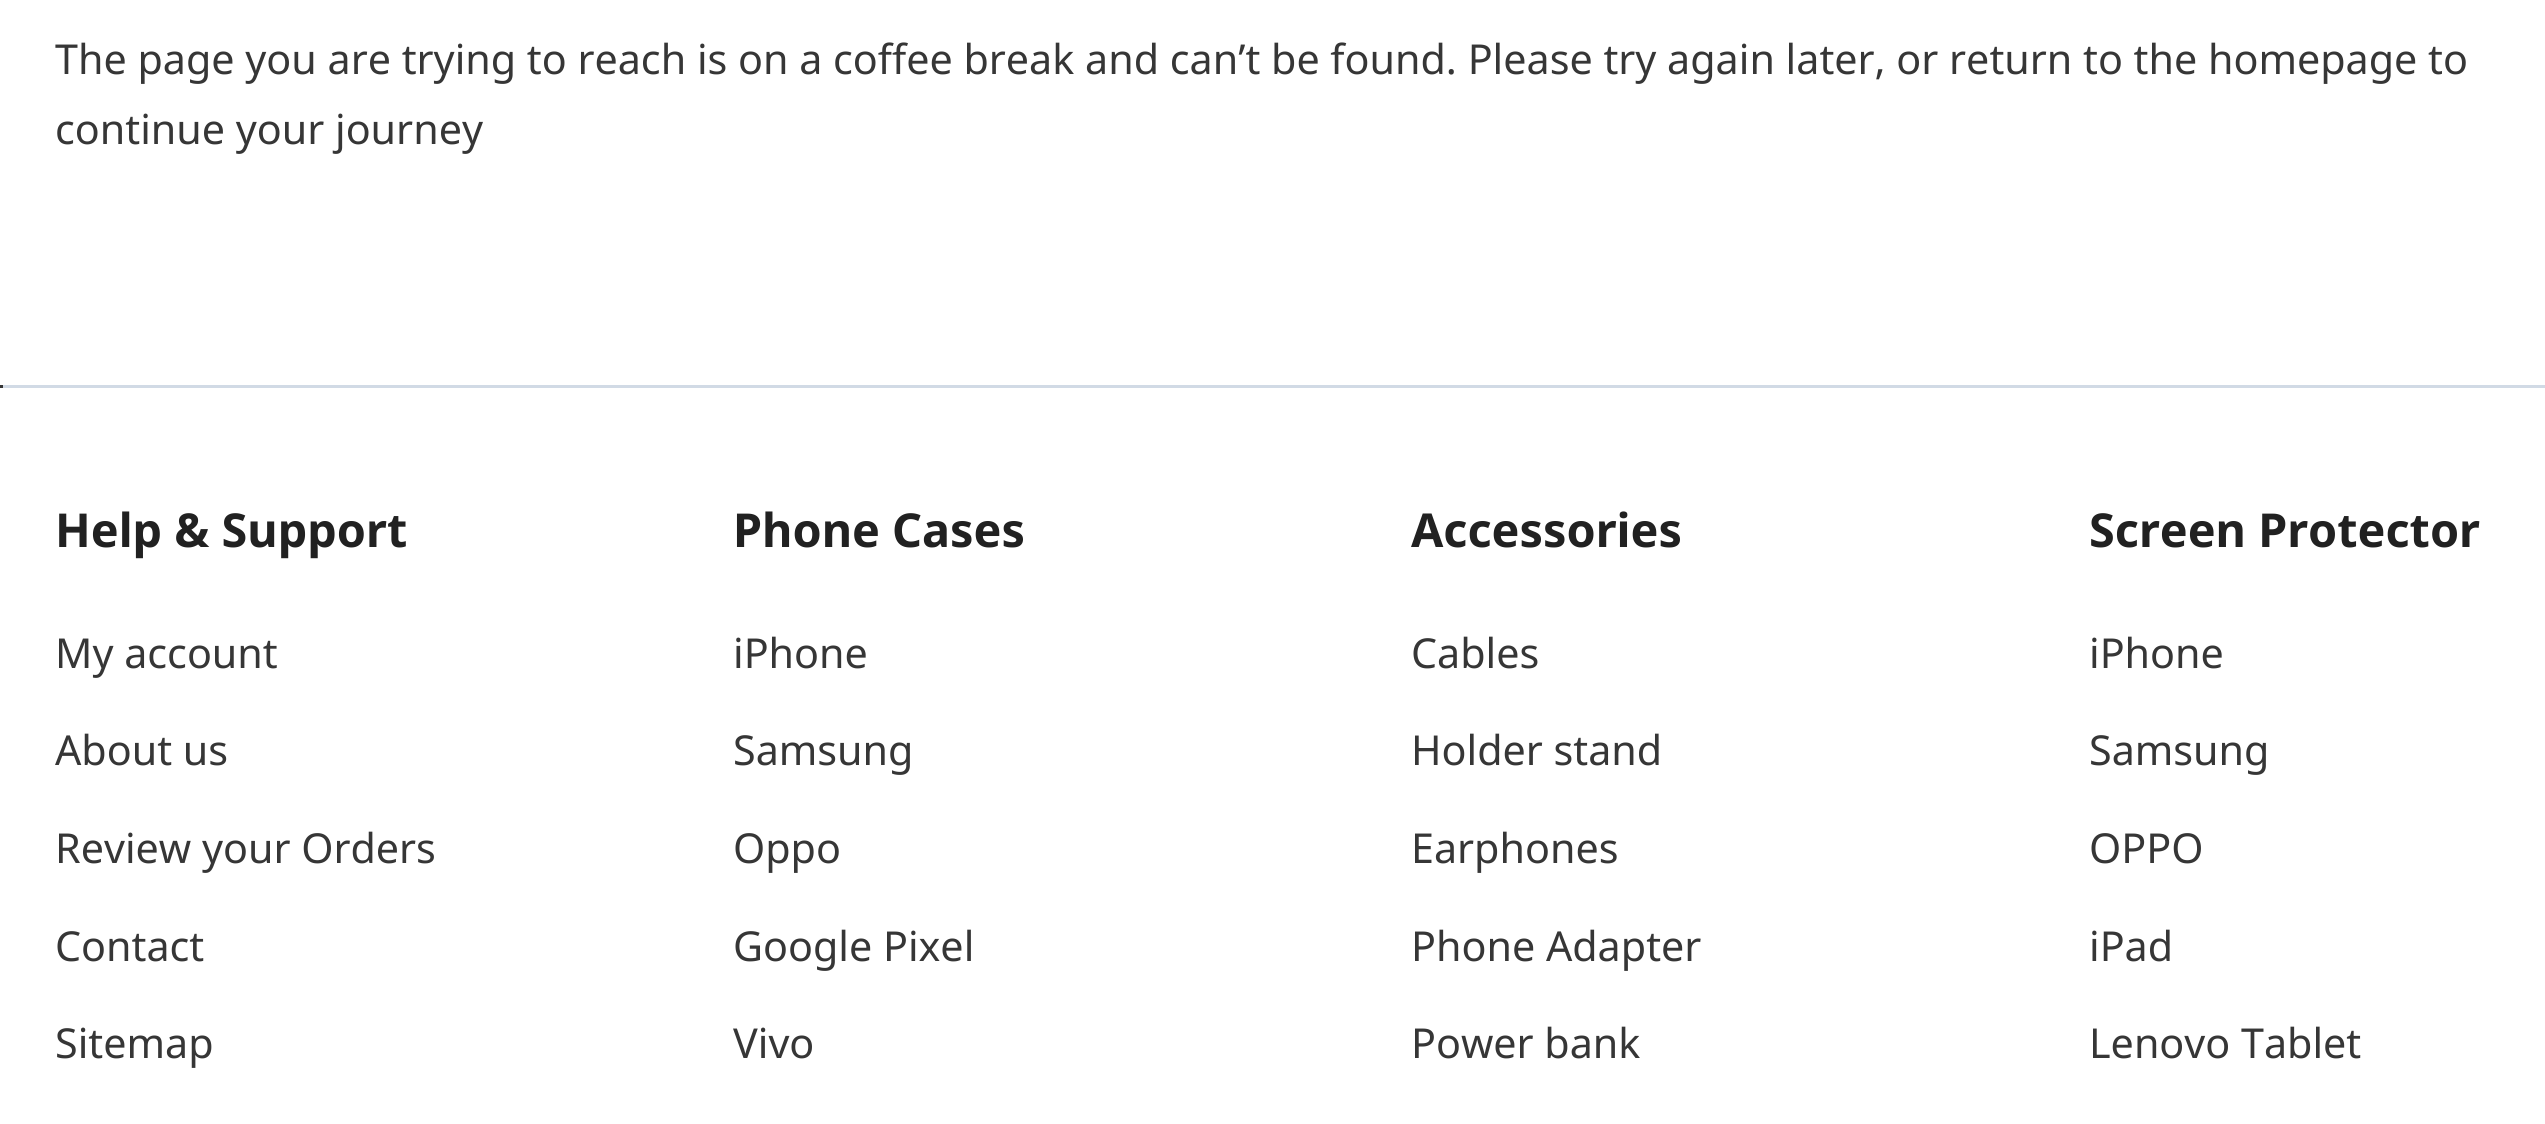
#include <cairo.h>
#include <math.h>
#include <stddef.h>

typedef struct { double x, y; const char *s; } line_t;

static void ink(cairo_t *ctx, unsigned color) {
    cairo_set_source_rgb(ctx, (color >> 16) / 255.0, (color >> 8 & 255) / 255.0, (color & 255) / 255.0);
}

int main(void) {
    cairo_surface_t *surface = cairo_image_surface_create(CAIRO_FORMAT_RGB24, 2545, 1124);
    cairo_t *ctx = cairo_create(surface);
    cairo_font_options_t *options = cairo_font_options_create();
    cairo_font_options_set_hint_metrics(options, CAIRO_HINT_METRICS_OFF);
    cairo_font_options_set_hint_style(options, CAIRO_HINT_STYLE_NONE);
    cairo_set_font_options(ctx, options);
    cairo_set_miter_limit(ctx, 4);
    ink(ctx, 0xFFFFFF);
    cairo_paint(ctx);
    cairo_select_font_face(ctx, "Noto Sans", CAIRO_FONT_SLANT_NORMAL, CAIRO_FONT_WEIGHT_NORMAL);
    cairo_set_font_size(ctx, 41.25);
    ink(ctx, 0x363636);
    cairo_move_to(ctx, 55, 74);
    cairo_show_text(ctx, "The page you are trying to reach is on a coffee break and can’t be found. Please try again later, or return to the homepage to");
    cairo_move_to(ctx, 55, 144);
    cairo_show_text(ctx, "continue your journey");
    ink(ctx, 0xD1DAE5);
    cairo_rectangle(ctx, 0, 385, 2545, 3);
    cairo_fill(ctx);
    ink(ctx, 0x363636);
    cairo_rectangle(ctx, 0, 385, 3, 3);
    cairo_fill(ctx);
    cairo_select_font_face(ctx, "Noto Sans", CAIRO_FONT_SLANT_NORMAL, CAIRO_FONT_WEIGHT_BOLD);
    cairo_set_font_size(ctx, 46.75);
    ink(ctx, 0x212121);
    cairo_move_to(ctx, 55, 547);
    cairo_show_text(ctx, "Help & Support");
    cairo_select_font_face(ctx, "Noto Sans", CAIRO_FONT_SLANT_NORMAL, CAIRO_FONT_WEIGHT_NORMAL);
    cairo_set_font_size(ctx, 41.25);
    ink(ctx, 0x363636);
    {
        static const line_t items[] = {
            {55, 668, "My account"},
            {55, 765, "About us"},
            {55, 863, "Review your Orders"},
            {55, 961, "Contact"},
            {55, 1058, "Sitemap"},
        };
        for (size_t i = 0; i < sizeof items / sizeof *items; i++) {
            cairo_move_to(ctx, items[i].x, items[i].y);
            cairo_show_text(ctx, items[i].s);
        }
    }
    cairo_select_font_face(ctx, "Noto Sans", CAIRO_FONT_SLANT_NORMAL, CAIRO_FONT_WEIGHT_BOLD);
    cairo_set_font_size(ctx, 46.75);
    ink(ctx, 0x212121);
    cairo_move_to(ctx, 733, 547);
    cairo_show_text(ctx, "Phone Cases");
    cairo_select_font_face(ctx, "Noto Sans", CAIRO_FONT_SLANT_NORMAL, CAIRO_FONT_WEIGHT_NORMAL);
    cairo_set_font_size(ctx, 41.25);
    ink(ctx, 0x363636);
    {
        static const line_t items[] = {
            {733, 668, "iPhone"},
            {733, 765, "Samsung"},
            {733, 863, "Oppo"},
            {733, 961, "Google Pixel"},
            {733, 1058, "Vivo"},
        };
        for (size_t i = 0; i < sizeof items / sizeof *items; i++) {
            cairo_move_to(ctx, items[i].x, items[i].y);
            cairo_show_text(ctx, items[i].s);
        }
    }
    cairo_select_font_face(ctx, "Noto Sans", CAIRO_FONT_SLANT_NORMAL, CAIRO_FONT_WEIGHT_BOLD);
    cairo_set_font_size(ctx, 46.75);
    ink(ctx, 0x212121);
    cairo_move_to(ctx, 1411, 547);
    cairo_show_text(ctx, "Accessories");
    cairo_select_font_face(ctx, "Noto Sans", CAIRO_FONT_SLANT_NORMAL, CAIRO_FONT_WEIGHT_NORMAL);
    cairo_set_font_size(ctx, 41.25);
    ink(ctx, 0x363636);
    {
        static const line_t items[] = {
            {1411, 668, "Cables"},
            {1411, 765, "Holder stand"},
            {1411, 863, "Earphones"},
            {1411, 961, "Phone Adapter"},
            {1411, 1058, "Power bank"},
        };
        for (size_t i = 0; i < sizeof items / sizeof *items; i++) {
            cairo_move_to(ctx, items[i].x, items[i].y);
            cairo_show_text(ctx, items[i].s);
        }
    }
    cairo_select_font_face(ctx, "Noto Sans", CAIRO_FONT_SLANT_NORMAL, CAIRO_FONT_WEIGHT_BOLD);
    cairo_set_font_size(ctx, 46.75);
    ink(ctx, 0x212121);
    cairo_move_to(ctx, 2089, 547);
    cairo_show_text(ctx, "Screen Protector");
    cairo_select_font_face(ctx, "Noto Sans", CAIRO_FONT_SLANT_NORMAL, CAIRO_FONT_WEIGHT_NORMAL);
    cairo_set_font_size(ctx, 41.25);
    ink(ctx, 0x363636);
    {
        static const line_t items[] = {
            {2089, 668, "iPhone"},
            {2089, 765, "Samsung"},
            {2089, 863, "OPPO"},
            {2089, 961, "iPad"},
            {2089, 1058, "Lenovo Tablet"},
        };
        for (size_t i = 0; i < sizeof items / sizeof *items; i++) {
            cairo_move_to(ctx, items[i].x, items[i].y);
            cairo_show_text(ctx, items[i].s);
        }
    }
    cairo_surface_write_to_png(surface, "image.png");
    cairo_font_options_destroy(options);
    cairo_destroy(ctx);
    cairo_surface_destroy(surface);
    return 0;
}
